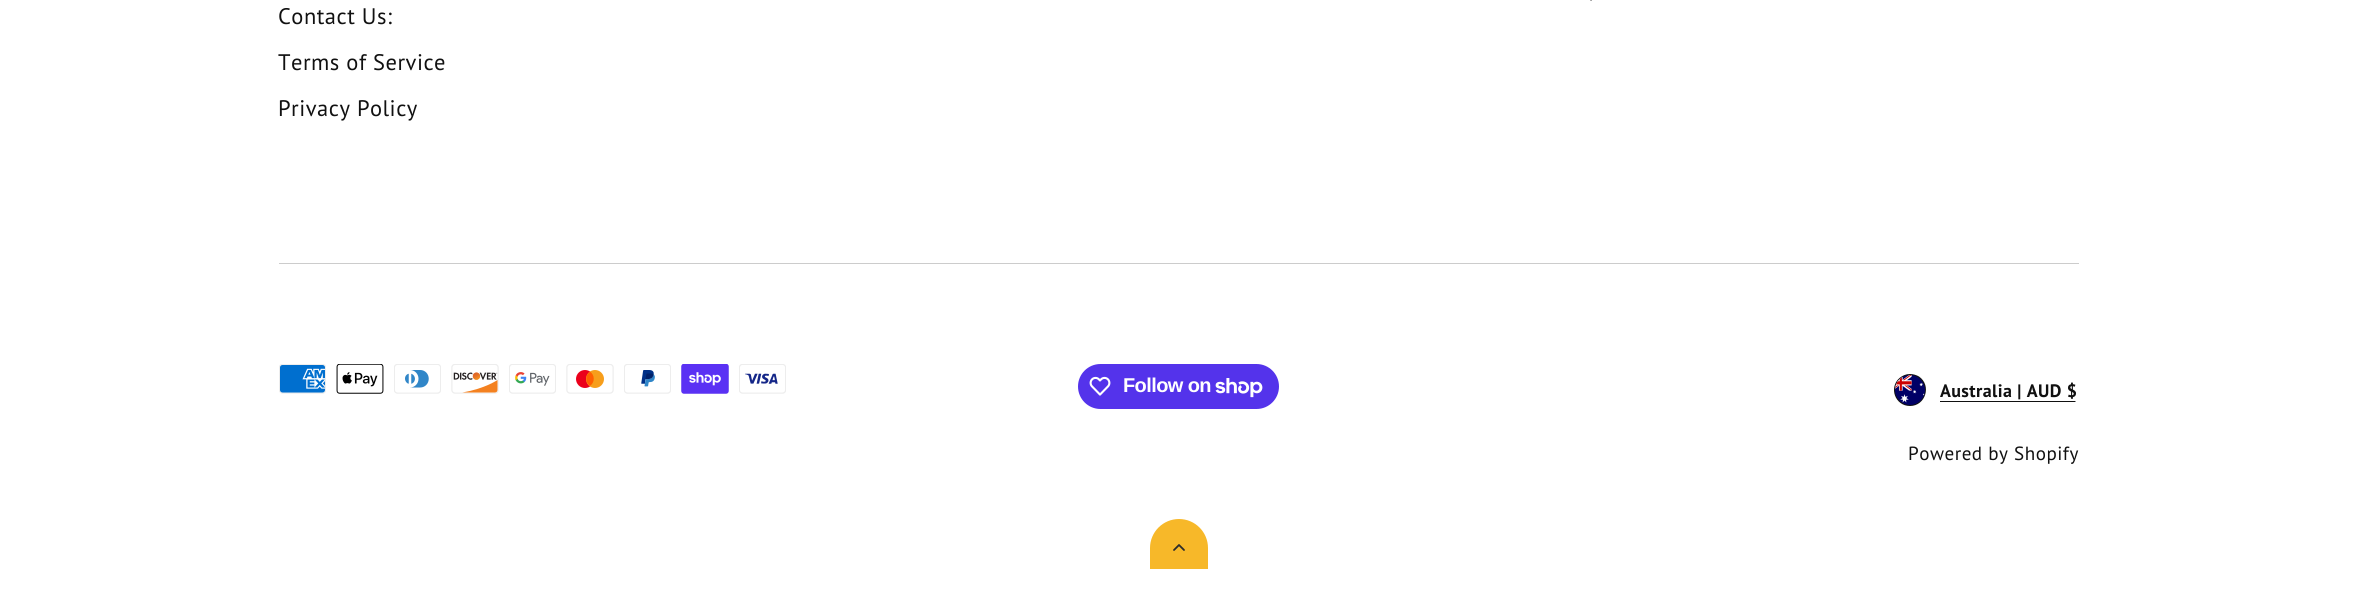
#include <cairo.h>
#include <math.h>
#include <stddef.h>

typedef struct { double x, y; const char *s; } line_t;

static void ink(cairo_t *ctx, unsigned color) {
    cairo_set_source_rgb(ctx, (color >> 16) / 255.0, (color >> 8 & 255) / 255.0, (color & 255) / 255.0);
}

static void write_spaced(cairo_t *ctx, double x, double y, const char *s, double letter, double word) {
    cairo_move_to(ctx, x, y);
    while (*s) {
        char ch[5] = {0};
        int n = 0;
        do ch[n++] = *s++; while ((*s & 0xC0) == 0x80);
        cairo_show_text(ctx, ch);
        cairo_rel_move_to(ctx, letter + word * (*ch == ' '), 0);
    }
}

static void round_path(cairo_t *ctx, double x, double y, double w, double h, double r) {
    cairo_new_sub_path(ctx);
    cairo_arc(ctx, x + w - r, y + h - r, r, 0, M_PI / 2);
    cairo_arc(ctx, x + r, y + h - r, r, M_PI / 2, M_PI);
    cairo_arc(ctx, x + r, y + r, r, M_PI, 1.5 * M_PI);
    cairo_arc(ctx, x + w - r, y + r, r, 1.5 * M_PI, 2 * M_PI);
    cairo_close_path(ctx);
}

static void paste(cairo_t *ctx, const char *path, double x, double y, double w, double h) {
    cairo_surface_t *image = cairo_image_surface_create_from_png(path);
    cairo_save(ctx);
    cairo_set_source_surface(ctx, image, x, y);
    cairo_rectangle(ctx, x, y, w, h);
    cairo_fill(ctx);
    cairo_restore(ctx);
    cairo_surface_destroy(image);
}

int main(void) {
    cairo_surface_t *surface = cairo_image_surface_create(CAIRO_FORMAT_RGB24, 2356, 603);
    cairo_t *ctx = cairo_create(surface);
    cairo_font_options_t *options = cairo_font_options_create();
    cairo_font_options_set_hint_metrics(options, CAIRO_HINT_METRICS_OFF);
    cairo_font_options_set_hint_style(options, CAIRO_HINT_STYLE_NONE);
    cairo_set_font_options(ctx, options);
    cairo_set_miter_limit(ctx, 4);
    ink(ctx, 0xFFFFFF);
    cairo_paint(ctx);
    cairo_new_path(ctx);
    cairo_move_to(ctx, 1591, 0);
    cairo_line_to(ctx, 1596.5, -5.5);
    cairo_line_to(ctx, 1591, -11);
    ink(ctx, 0x111111);
    cairo_set_line_width(ctx, 1.3);
    cairo_set_line_cap(ctx, CAIRO_LINE_CAP_ROUND);
    cairo_set_line_join(ctx, CAIRO_LINE_JOIN_ROUND);
    cairo_stroke(ctx);
    cairo_select_font_face(ctx, "PT Sans", CAIRO_FONT_SLANT_NORMAL, CAIRO_FONT_WEIGHT_NORMAL);
    cairo_set_font_size(ctx, 22.5);
    {
        static const line_t items[] = {
            {278, 24, "Contact Us:"},
            {278, 70, "Terms of Service"},
            {278, 116, "Privacy Policy"},
        };
        for (size_t i = 0; i < sizeof items / sizeof *items; i++) {
            write_spaced(ctx, items[i].x, items[i].y, items[i].s, 0.5, 0);
        }
    }
    ink(ctx, 0xCCCCCC);
    cairo_rectangle(ctx, 279, 263, 1800, 1);
    cairo_fill(ctx);
    paste(ctx, "media/1.png", 279, 364, 47, 30);
    paste(ctx, "media/2.png", 336, 364, 48, 30);
    paste(ctx, "media/3.png", 394, 364, 47, 30);
    paste(ctx, "media/4.png", 451, 364, 48, 30);
    paste(ctx, "media/5.png", 509, 364, 47, 30);
    paste(ctx, "media/6.png", 566, 364, 48, 30);
    paste(ctx, "media/7.png", 624, 364, 47, 30);
    paste(ctx, "media/8.png", 681, 364, 48, 30);
    paste(ctx, "media/9.png", 739, 364, 47, 30);
    ink(ctx, 0x5433EB);
    round_path(ctx, 1078, 364, 201, 45, 22.5);
    cairo_fill(ctx);
    paste(ctx, "media/10.png", 1089, 376, 22, 20);
    cairo_select_font_face(ctx, "Liberation Sans", CAIRO_FONT_SLANT_NORMAL, CAIRO_FONT_WEIGHT_BOLD);
    cairo_set_font_size(ctx, 20);
    ink(ctx, 0xFFFFFF);
    write_spaced(ctx, 1123, 392, "Follow on", -0.6, 0);
    paste(ctx, "media/11.png", 1215, 378, 48, 20);
    ink(ctx, 0x111111);
    cairo_set_fill_rule(ctx, CAIRO_FILL_RULE_EVEN_ODD);
    cairo_new_path(ctx);
    cairo_move_to(ctx, 1910, 374);
    cairo_curve_to(ctx, 1913, 374, 1916.5, 375, 1919, 376.5);
    cairo_curve_to(ctx, 1932, 385.5, 1925.5, 406, 1910, 406);
    cairo_curve_to(ctx, 1895, 406, 1888.5, 387.5, 1899.5, 378);
    cairo_curve_to(ctx, 1902.5, 375.5, 1906, 374, 1910, 374);
    cairo_close_path(ctx);
    cairo_move_to(ctx, 1910, 376);
    cairo_curve_to(ctx, 1891.5, 376, 1891.5, 404, 1910, 404);
    cairo_curve_to(ctx, 1928.5, 404, 1928.5, 376, 1910, 376);
    cairo_close_path(ctx);
    cairo_fill(ctx);
    paste(ctx, "media/12.png", 1895, 375, 30, 30);
    cairo_select_font_face(ctx, "PT Sans", CAIRO_FONT_SLANT_NORMAL, CAIRO_FONT_WEIGHT_BOLD);
    cairo_set_font_size(ctx, 18);
    write_spaced(ctx, 1940, 397, "Australia | AUD $", 0.4, 0);
    cairo_save(ctx);
    cairo_set_fill_rule(ctx, CAIRO_FILL_RULE_WINDING);
    round_path(ctx, 1894, 365, 184, 51, 25.5);
    cairo_clip(ctx);
    cairo_rectangle(ctx, 1940, 401, 138, 1);
    cairo_fill(ctx);
    cairo_restore(ctx);
    cairo_select_font_face(ctx, "PT Sans", CAIRO_FONT_SLANT_NORMAL, CAIRO_FONT_WEIGHT_NORMAL);
    cairo_set_font_size(ctx, 19.1);
    write_spaced(ctx, 1908, 460, "Powered by Shopify", 0.5, 0);
    ink(ctx, 0xF7B829);
    cairo_new_path(ctx);
    cairo_move_to(ctx, 1179, 519);
    cairo_curve_to(ctx, 1195, 519, 1208, 532, 1208, 548);
    cairo_line_to(ctx, 1208, 569);
    cairo_line_to(ctx, 1150, 569);
    cairo_line_to(ctx, 1150, 548);
    cairo_curve_to(ctx, 1150, 532, 1163, 519, 1179, 519);
    cairo_close_path(ctx);
    cairo_fill(ctx);
    cairo_new_path(ctx);
    cairo_move_to(ctx, 1184, 550);
    cairo_line_to(ctx, 1179, 545);
    cairo_line_to(ctx, 1174, 550);
    ink(ctx, 0x2B2B2B);
    cairo_set_line_width(ctx, 1.8);
    cairo_stroke(ctx);
    cairo_surface_write_to_png(surface, "image.png");
    cairo_font_options_destroy(options);
    cairo_destroy(ctx);
    cairo_surface_destroy(surface);
    return 0;
}
